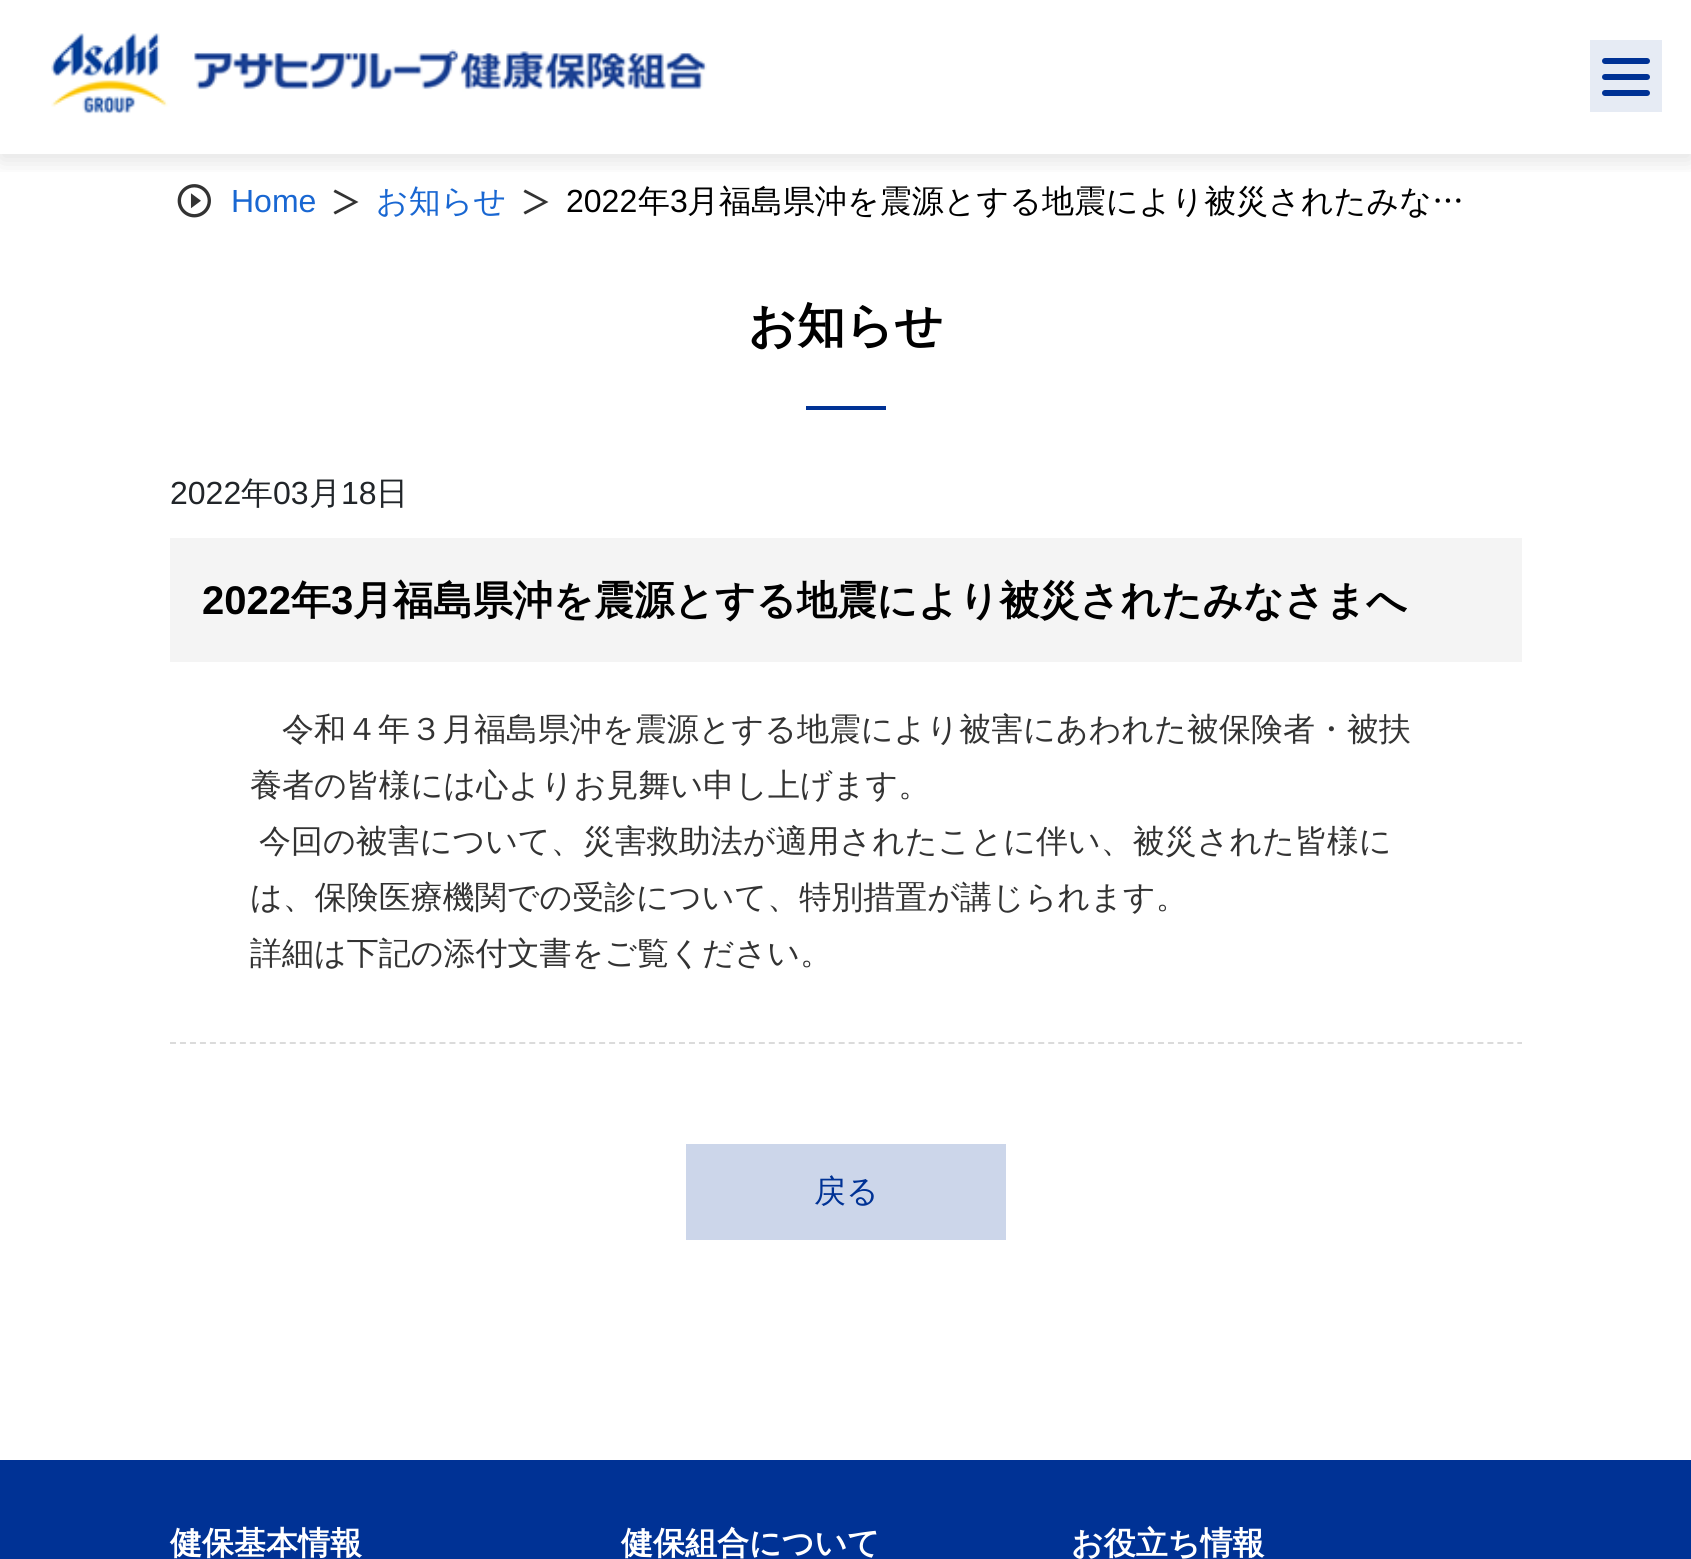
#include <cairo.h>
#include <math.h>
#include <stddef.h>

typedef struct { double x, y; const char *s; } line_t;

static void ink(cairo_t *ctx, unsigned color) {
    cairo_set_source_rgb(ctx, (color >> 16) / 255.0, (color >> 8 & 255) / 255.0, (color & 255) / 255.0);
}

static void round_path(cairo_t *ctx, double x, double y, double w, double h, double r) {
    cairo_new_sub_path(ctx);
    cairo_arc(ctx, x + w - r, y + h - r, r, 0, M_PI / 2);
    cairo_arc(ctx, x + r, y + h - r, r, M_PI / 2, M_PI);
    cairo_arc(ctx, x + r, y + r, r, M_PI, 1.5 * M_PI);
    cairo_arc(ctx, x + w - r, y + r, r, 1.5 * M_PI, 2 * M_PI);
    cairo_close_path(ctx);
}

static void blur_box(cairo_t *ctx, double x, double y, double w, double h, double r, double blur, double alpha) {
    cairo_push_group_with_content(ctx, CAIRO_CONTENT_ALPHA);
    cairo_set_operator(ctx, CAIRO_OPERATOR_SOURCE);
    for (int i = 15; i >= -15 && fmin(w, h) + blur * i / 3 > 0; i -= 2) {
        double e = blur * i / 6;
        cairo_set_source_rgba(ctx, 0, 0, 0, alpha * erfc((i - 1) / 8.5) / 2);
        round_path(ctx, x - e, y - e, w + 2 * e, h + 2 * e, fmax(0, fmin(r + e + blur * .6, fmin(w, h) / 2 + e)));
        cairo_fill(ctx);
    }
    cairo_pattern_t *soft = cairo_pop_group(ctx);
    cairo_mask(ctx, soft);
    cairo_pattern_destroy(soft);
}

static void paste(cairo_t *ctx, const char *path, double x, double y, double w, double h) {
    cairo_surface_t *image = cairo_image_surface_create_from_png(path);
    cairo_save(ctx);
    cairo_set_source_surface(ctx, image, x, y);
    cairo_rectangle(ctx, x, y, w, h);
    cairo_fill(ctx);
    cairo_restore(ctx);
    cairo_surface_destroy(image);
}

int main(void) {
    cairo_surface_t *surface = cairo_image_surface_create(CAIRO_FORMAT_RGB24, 1691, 1559);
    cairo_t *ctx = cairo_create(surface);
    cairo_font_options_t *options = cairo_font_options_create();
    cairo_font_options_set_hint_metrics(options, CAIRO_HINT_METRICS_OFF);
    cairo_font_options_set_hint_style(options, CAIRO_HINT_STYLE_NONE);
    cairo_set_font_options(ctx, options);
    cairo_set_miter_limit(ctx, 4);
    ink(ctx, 0xFFFFFF);
    cairo_paint(ctx);
    cairo_save(ctx);
    cairo_rectangle(ctx, 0, 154, 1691, 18);
    cairo_clip(ctx);
    ink(ctx, 0x000000);
    blur_box(ctx, 0, 6, 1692, 154, 0, 12, 0.12);
    cairo_restore(ctx);
    paste(ctx, "media/1.png", 51, 33, 656, 81);
    ink(ctx, 0xE6EBF4);
    cairo_rectangle(ctx, 1590, 40, 72, 72);
    cairo_fill(ctx);
    ink(ctx, 0x003295);
    round_path(ctx, 1602, 58, 48, 6, 3);
    cairo_fill(ctx);
    round_path(ctx, 1602, 74, 48, 6, 3);
    cairo_fill(ctx);
    round_path(ctx, 1602, 90, 48, 6, 3);
    cairo_fill(ctx);
    paste(ctx, "media/2.png", 177, 184, 34, 34);
    cairo_select_font_face(ctx, "Liberation Sans", CAIRO_FONT_SLANT_NORMAL, CAIRO_FONT_WEIGHT_NORMAL);
    cairo_set_font_size(ctx, 32);
    ink(ctx, 0x1967D2);
    cairo_move_to(ctx, 231, 212);
    cairo_show_text(ctx, "Home");
    ink(ctx, 0x333333);
    cairo_new_path(ctx);
    cairo_move_to(ctx, 358.5, 202);
    cairo_line_to(ctx, 335, 189.5);
    cairo_line_to(ctx, 333.5, 192);
    cairo_line_to(ctx, 353, 202);
    cairo_line_to(ctx, 333.5, 212);
    cairo_line_to(ctx, 335, 214.5);
    cairo_close_path(ctx);
    cairo_fill(ctx);
    cairo_select_font_face(ctx, "WenQuanYi Zen Hei Medium", CAIRO_FONT_SLANT_NORMAL, CAIRO_FONT_WEIGHT_NORMAL);
    ink(ctx, 0x1967D2);
    cairo_move_to(ctx, 376, 212);
    cairo_show_text(ctx, "お知らせ");
    ink(ctx, 0x333333);
    cairo_new_path(ctx);
    cairo_move_to(ctx, 548.5, 202);
    cairo_line_to(ctx, 525, 189.5);
    cairo_line_to(ctx, 523.5, 192);
    cairo_line_to(ctx, 543, 202);
    cairo_line_to(ctx, 523.5, 212);
    cairo_line_to(ctx, 525, 214.5);
    cairo_close_path(ctx);
    cairo_fill(ctx);
    cairo_select_font_face(ctx, "Liberation Sans", CAIRO_FONT_SLANT_NORMAL, CAIRO_FONT_WEIGHT_NORMAL);
    ink(ctx, 0x000000);
    cairo_move_to(ctx, 566, 212);
    cairo_show_text(ctx, "2022");
    cairo_select_font_face(ctx, "WenQuanYi Zen Hei Medium", CAIRO_FONT_SLANT_NORMAL, CAIRO_FONT_WEIGHT_NORMAL);
    cairo_move_to(ctx, 638, 212);
    cairo_show_text(ctx, "年");
    cairo_select_font_face(ctx, "Liberation Sans", CAIRO_FONT_SLANT_NORMAL, CAIRO_FONT_WEIGHT_NORMAL);
    cairo_move_to(ctx, 670, 212);
    cairo_show_text(ctx, "3");
    cairo_select_font_face(ctx, "WenQuanYi Zen Hei Medium", CAIRO_FONT_SLANT_NORMAL, CAIRO_FONT_WEIGHT_NORMAL);
    cairo_move_to(ctx, 687, 212);
    cairo_show_text(ctx, "月福島県沖を震源とする地震により被災されたみな…");
    cairo_select_font_face(ctx, "WenQuanYi Zen Hei", CAIRO_FONT_SLANT_NORMAL, CAIRO_FONT_WEIGHT_BOLD);
    cairo_set_font_size(ctx, 48);
    cairo_move_to(ctx, 748, 342);
    cairo_show_text(ctx, "お知らせ");
    ink(ctx, 0x003295);
    cairo_rectangle(ctx, 806, 406, 80, 4);
    cairo_fill(ctx);
    cairo_select_font_face(ctx, "Liberation Sans", CAIRO_FONT_SLANT_NORMAL, CAIRO_FONT_WEIGHT_NORMAL);
    cairo_set_font_size(ctx, 32);
    ink(ctx, 0x212529);
    cairo_move_to(ctx, 170, 504);
    cairo_show_text(ctx, "2022");
    cairo_select_font_face(ctx, "WenQuanYi Zen Hei Medium", CAIRO_FONT_SLANT_NORMAL, CAIRO_FONT_WEIGHT_NORMAL);
    cairo_move_to(ctx, 241, 504);
    cairo_show_text(ctx, "年");
    cairo_select_font_face(ctx, "Liberation Sans", CAIRO_FONT_SLANT_NORMAL, CAIRO_FONT_WEIGHT_NORMAL);
    cairo_move_to(ctx, 273, 504);
    cairo_show_text(ctx, "03");
    cairo_select_font_face(ctx, "WenQuanYi Zen Hei Medium", CAIRO_FONT_SLANT_NORMAL, CAIRO_FONT_WEIGHT_NORMAL);
    cairo_move_to(ctx, 309, 504);
    cairo_show_text(ctx, "月");
    cairo_select_font_face(ctx, "Liberation Sans", CAIRO_FONT_SLANT_NORMAL, CAIRO_FONT_WEIGHT_NORMAL);
    cairo_move_to(ctx, 341, 504);
    cairo_show_text(ctx, "18");
    cairo_select_font_face(ctx, "WenQuanYi Zen Hei Medium", CAIRO_FONT_SLANT_NORMAL, CAIRO_FONT_WEIGHT_NORMAL);
    cairo_move_to(ctx, 376, 504);
    cairo_show_text(ctx, "日");
    ink(ctx, 0xF4F4F4);
    cairo_rectangle(ctx, 170, 538, 1352, 124);
    cairo_fill(ctx);
    cairo_select_font_face(ctx, "Liberation Sans", CAIRO_FONT_SLANT_NORMAL, CAIRO_FONT_WEIGHT_BOLD);
    cairo_set_font_size(ctx, 40);
    ink(ctx, 0x000000);
    cairo_move_to(ctx, 202, 614);
    cairo_show_text(ctx, "2022");
    cairo_select_font_face(ctx, "WenQuanYi Zen Hei", CAIRO_FONT_SLANT_NORMAL, CAIRO_FONT_WEIGHT_BOLD);
    cairo_move_to(ctx, 291, 614);
    cairo_show_text(ctx, "年");
    cairo_select_font_face(ctx, "Liberation Sans", CAIRO_FONT_SLANT_NORMAL, CAIRO_FONT_WEIGHT_BOLD);
    cairo_move_to(ctx, 331, 614);
    cairo_show_text(ctx, "3");
    cairo_select_font_face(ctx, "WenQuanYi Zen Hei", CAIRO_FONT_SLANT_NORMAL, CAIRO_FONT_WEIGHT_BOLD);
    cairo_move_to(ctx, 353, 614);
    cairo_show_text(ctx, "月福島県沖を震源とする地震により被災されたみなさまへ");
    cairo_new_path(ctx);
    cairo_move_to(ctx, 170, 1043);
    cairo_line_to(ctx, 1522, 1043);
    ink(ctx, 0xDBDBDB);
    cairo_set_dash(ctx, (double[]){6, 3.98}, 2, 0);
    cairo_stroke(ctx);
    cairo_select_font_face(ctx, "WenQuanYi Zen Hei Medium", CAIRO_FONT_SLANT_NORMAL, CAIRO_FONT_WEIGHT_NORMAL);
    cairo_set_font_size(ctx, 32);
    ink(ctx, 0x333333);
    {
        static const line_t items[] = {
            {282, 740, "令和４年３月福島県沖を震源とする地震により被害にあわれた被保険者・被扶"},
            {250, 796, "養者の皆様には心よりお見舞い申し上げます。"},
            {259, 852, "今回の被害について、災害救助法が適用されたことに伴い、被災された皆様に"},
            {250, 908, "は、保険医療機関での受診について、特別措置が講じられます。"},
            {250, 964, "詳細は下記の添付文書をご覧ください。"},
        };
        for (size_t i = 0; i < sizeof items / sizeof *items; i++) {
            cairo_move_to(ctx, items[i].x, items[i].y);
            cairo_show_text(ctx, items[i].s);
        }
    }
    ink(ctx, 0xCCD6EA);
    cairo_rectangle(ctx, 686, 1144, 320, 96);
    cairo_fill(ctx);
    ink(ctx, 0x003295);
    cairo_move_to(ctx, 814, 1202);
    cairo_show_text(ctx, "戻る");
    cairo_rectangle(ctx, 0, 1460, 1691, 99);
    cairo_fill(ctx);
    cairo_select_font_face(ctx, "WenQuanYi Zen Hei", CAIRO_FONT_SLANT_NORMAL, CAIRO_FONT_WEIGHT_BOLD);
    ink(ctx, 0xFFFFFF);
    {
        static const line_t items[] = {
            {170, 1554, "健保基本情報"},
            {621, 1554, "健保組合について"},
            {1071, 1554, "お役立ち情報"},
        };
        for (size_t i = 0; i < sizeof items / sizeof *items; i++) {
            cairo_move_to(ctx, items[i].x, items[i].y);
            cairo_show_text(ctx, items[i].s);
        }
    }
    cairo_surface_write_to_png(surface, "image.png");
    cairo_font_options_destroy(options);
    cairo_destroy(ctx);
    cairo_surface_destroy(surface);
    return 0;
}
